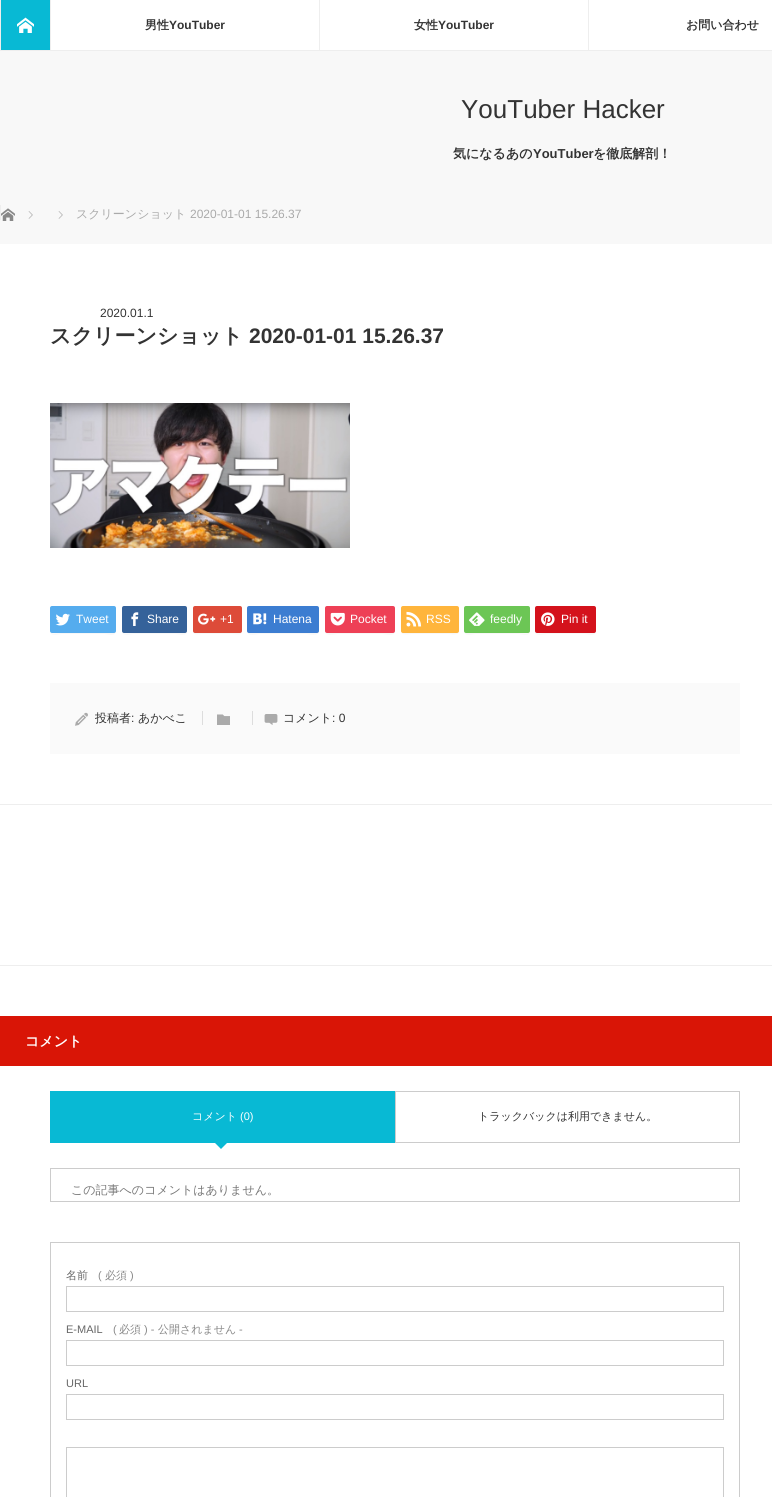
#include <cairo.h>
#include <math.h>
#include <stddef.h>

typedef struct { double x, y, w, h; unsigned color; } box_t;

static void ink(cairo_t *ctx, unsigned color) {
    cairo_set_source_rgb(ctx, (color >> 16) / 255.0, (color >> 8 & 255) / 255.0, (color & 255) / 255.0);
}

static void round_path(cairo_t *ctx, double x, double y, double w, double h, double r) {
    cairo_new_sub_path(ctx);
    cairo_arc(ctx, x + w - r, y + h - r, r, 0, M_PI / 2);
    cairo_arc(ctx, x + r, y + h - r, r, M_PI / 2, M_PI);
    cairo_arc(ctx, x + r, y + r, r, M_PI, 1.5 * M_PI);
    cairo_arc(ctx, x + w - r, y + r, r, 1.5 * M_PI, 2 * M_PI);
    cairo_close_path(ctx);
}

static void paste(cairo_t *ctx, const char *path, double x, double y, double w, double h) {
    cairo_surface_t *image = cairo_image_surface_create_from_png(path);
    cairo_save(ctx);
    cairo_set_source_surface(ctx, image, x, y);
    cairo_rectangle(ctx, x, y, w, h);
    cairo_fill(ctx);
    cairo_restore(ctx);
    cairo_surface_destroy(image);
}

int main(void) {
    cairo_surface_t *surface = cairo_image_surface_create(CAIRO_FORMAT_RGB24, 772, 1497);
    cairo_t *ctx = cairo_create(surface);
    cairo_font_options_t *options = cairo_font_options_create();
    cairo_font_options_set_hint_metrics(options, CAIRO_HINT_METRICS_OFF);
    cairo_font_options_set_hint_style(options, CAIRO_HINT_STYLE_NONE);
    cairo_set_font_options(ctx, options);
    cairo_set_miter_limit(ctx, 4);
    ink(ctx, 0xF8F8F8);
    cairo_paint(ctx);
    {
        static const box_t items[] = {
            {51, 0, 721, 50, 0xFFFFFF},
            {0, 50, 772, 1, 0xEEEEEE},
            {1, 0, 49, 50, 0x08B9D4},
            {0, 0, 1, 50, 0xEEEEEE},
        };
        for (size_t i = 0; i < sizeof items / sizeof *items; i++) {
            ink(ctx, items[i].color);
            cairo_rectangle(ctx, items[i].x, items[i].y, items[i].w, items[i].h);
            cairo_fill(ctx);
        }
    }
    paste(ctx, "media/1.png", 17, 17, 17, 16);
    cairo_rectangle(ctx, 50, 0, 1, 50);
    cairo_fill(ctx);
    cairo_select_font_face(ctx, "WenQuanYi Zen Hei", CAIRO_FONT_SLANT_NORMAL, CAIRO_FONT_WEIGHT_BOLD);
    cairo_set_font_size(ctx, 12);
    ink(ctx, 0x333333);
    cairo_move_to(ctx, 145, 29);
    cairo_show_text(ctx, "男性");
    cairo_select_font_face(ctx, "Liberation Sans", CAIRO_FONT_SLANT_NORMAL, CAIRO_FONT_WEIGHT_BOLD);
    cairo_move_to(ctx, 169, 29);
    cairo_show_text(ctx, "YouTuber");
    ink(ctx, 0xEEEEEE);
    cairo_rectangle(ctx, 319, 0, 1, 50);
    cairo_fill(ctx);
    cairo_select_font_face(ctx, "WenQuanYi Zen Hei", CAIRO_FONT_SLANT_NORMAL, CAIRO_FONT_WEIGHT_BOLD);
    ink(ctx, 0x333333);
    cairo_move_to(ctx, 414, 29);
    cairo_show_text(ctx, "女性");
    cairo_select_font_face(ctx, "Liberation Sans", CAIRO_FONT_SLANT_NORMAL, CAIRO_FONT_WEIGHT_BOLD);
    cairo_move_to(ctx, 438, 29);
    cairo_show_text(ctx, "YouTuber");
    ink(ctx, 0xEEEEEE);
    cairo_rectangle(ctx, 588, 0, 1, 50);
    cairo_fill(ctx);
    cairo_select_font_face(ctx, "WenQuanYi Zen Hei", CAIRO_FONT_SLANT_NORMAL, CAIRO_FONT_WEIGHT_BOLD);
    ink(ctx, 0x333333);
    cairo_move_to(ctx, 686, 29);
    cairo_show_text(ctx, "お問い合わせ");
    cairo_select_font_face(ctx, "Liberation Sans", CAIRO_FONT_SLANT_NORMAL, CAIRO_FONT_WEIGHT_NORMAL);
    cairo_set_font_size(ctx, 26);
    cairo_move_to(ctx, 461, 118);
    cairo_show_text(ctx, "YouTuber Hacker");
    cairo_select_font_face(ctx, "WenQuanYi Zen Hei", CAIRO_FONT_SLANT_NORMAL, CAIRO_FONT_WEIGHT_BOLD);
    cairo_set_font_size(ctx, 13);
    cairo_move_to(ctx, 453, 158);
    cairo_show_text(ctx, "気になるあの");
    cairo_select_font_face(ctx, "Liberation Sans", CAIRO_FONT_SLANT_NORMAL, CAIRO_FONT_WEIGHT_BOLD);
    cairo_move_to(ctx, 533, 158);
    cairo_show_text(ctx, "YouTuber");
    cairo_select_font_face(ctx, "WenQuanYi Zen Hei", CAIRO_FONT_SLANT_NORMAL, CAIRO_FONT_WEIGHT_BOLD);
    cairo_move_to(ctx, 593, 158);
    cairo_show_text(ctx, "を徹底解剖！");
    ink(ctx, 0xEEEEEE);
    cairo_rectangle(ctx, 0, 205, 1, 15);
    cairo_fill(ctx);
    paste(ctx, "media/2.png", 1, 208, 14, 13);
    paste(ctx, "media/3.png", 28, 211, 5, 8);
    paste(ctx, "media/3.png", 58, 211, 5, 8);
    cairo_select_font_face(ctx, "WenQuanYi Zen Hei Medium", CAIRO_FONT_SLANT_NORMAL, CAIRO_FONT_WEIGHT_NORMAL);
    cairo_set_font_size(ctx, 12);
    ink(ctx, 0xAAAAAA);
    cairo_move_to(ctx, 76, 218);
    cairo_show_text(ctx, "スクリーンショット");
    cairo_select_font_face(ctx, "Liberation Sans", CAIRO_FONT_SLANT_NORMAL, CAIRO_FONT_WEIGHT_NORMAL);
    cairo_move_to(ctx, 190, 218);
    cairo_show_text(ctx, "2020-01-01 15.26.37");
    ink(ctx, 0xFFFFFF);
    cairo_rectangle(ctx, 0, 244, 772, 1253);
    cairo_fill(ctx);
    ink(ctx, 0x333333);
    cairo_move_to(ctx, 100, 317);
    cairo_show_text(ctx, "2020.01.1");
    cairo_select_font_face(ctx, "WenQuanYi Zen Hei", CAIRO_FONT_SLANT_NORMAL, CAIRO_FONT_WEIGHT_BOLD);
    cairo_set_font_size(ctx, 21);
    cairo_move_to(ctx, 50, 343);
    cairo_show_text(ctx, "スクリーンショット");
    cairo_select_font_face(ctx, "Liberation Sans", CAIRO_FONT_SLANT_NORMAL, CAIRO_FONT_WEIGHT_BOLD);
    cairo_move_to(ctx, 249, 343);
    cairo_show_text(ctx, "2020-01-01 15.26.37");
    paste(ctx, "media/4.png", 50, 403, 300, 145);
    ink(ctx, 0xF7F7F7);
    cairo_new_path(ctx);
    cairo_move_to(ctx, 50, 631);
    cairo_curve_to(ctx, 50, 637, 59, 634, 62, 634);
    cairo_line_to(ctx, 104, 634);
    cairo_curve_to(ctx, 107, 634, 116, 637, 116, 631);
    cairo_line_to(ctx, 115, 633);
    cairo_line_to(ctx, 62, 633);
    cairo_curve_to(ctx, 58, 633, 50, 635, 50, 631);
    cairo_close_path(ctx);
    cairo_fill(ctx);
    ink(ctx, 0x55ACEE);
    round_path(ctx, 50, 606, 66, 27, 2);
    cairo_fill(ctx);
    paste(ctx, "media/5.png", 55, 613, 15, 13);
    cairo_select_font_face(ctx, "Liberation Sans", CAIRO_FONT_SLANT_NORMAL, CAIRO_FONT_WEIGHT_NORMAL);
    cairo_set_font_size(ctx, 12);
    ink(ctx, 0xFFFFFF);
    cairo_move_to(ctx, 76, 623);
    cairo_show_text(ctx, "Tweet");
    ink(ctx, 0xF7F7F7);
    cairo_new_path(ctx);
    cairo_move_to(ctx, 122, 631);
    cairo_curve_to(ctx, 122, 637, 130, 634, 134, 634);
    cairo_line_to(ctx, 175, 634);
    cairo_curve_to(ctx, 179, 634, 187, 637, 187, 631);
    cairo_line_to(ctx, 186, 633);
    cairo_line_to(ctx, 134, 633);
    cairo_curve_to(ctx, 130, 633, 122, 635, 122, 631);
    cairo_close_path(ctx);
    cairo_fill(ctx);
    ink(ctx, 0x35629A);
    round_path(ctx, 122, 606, 65, 27, 2);
    cairo_fill(ctx);
    paste(ctx, "media/6.png", 131, 612, 8, 14);
    ink(ctx, 0xFFFFFF);
    cairo_move_to(ctx, 147, 623);
    cairo_show_text(ctx, "Share");
    ink(ctx, 0xF7F7F7);
    cairo_new_path(ctx);
    cairo_move_to(ctx, 193, 631);
    cairo_curve_to(ctx, 193, 636, 199, 634, 202, 634);
    cairo_line_to(ctx, 232, 634);
    cairo_curve_to(ctx, 236, 634, 242, 636, 242, 631);
    cairo_curve_to(ctx, 242, 632, 241, 633, 240, 633);
    cairo_line_to(ctx, 195, 633);
    cairo_curve_to(ctx, 194, 633, 193, 632, 193, 631);
    cairo_close_path(ctx);
    cairo_fill(ctx);
    ink(ctx, 0xDD4B39);
    round_path(ctx, 193, 606, 49, 27, 2);
    cairo_fill(ctx);
    paste(ctx, "media/7.png", 198, 613, 18, 12);
    ink(ctx, 0xFFFFFF);
    cairo_move_to(ctx, 220, 623);
    cairo_show_text(ctx, "+1");
    ink(ctx, 0xF7F7F7);
    cairo_new_path(ctx);
    cairo_move_to(ctx, 247, 631);
    cairo_curve_to(ctx, 247, 637, 257, 634, 260, 634);
    cairo_line_to(ctx, 306, 634);
    cairo_curve_to(ctx, 309, 634, 319, 637, 319, 631);
    cairo_curve_to(ctx, 319, 632, 318, 633, 317, 633);
    cairo_line_to(ctx, 248, 633);
    cairo_close_path(ctx);
    cairo_fill(ctx);
    ink(ctx, 0x3C7DD1);
    round_path(ctx, 247, 606, 72, 27, 2);
    cairo_fill(ctx);
    paste(ctx, "media/8.png", 253, 613, 14, 12);
    ink(ctx, 0xFFFFFF);
    cairo_move_to(ctx, 273, 623);
    cairo_show_text(ctx, "Hatena");
    ink(ctx, 0xF7F7F7);
    cairo_new_path(ctx);
    cairo_move_to(ctx, 325, 631);
    cairo_curve_to(ctx, 325, 637, 334, 634, 338, 634);
    cairo_line_to(ctx, 382, 634);
    cairo_curve_to(ctx, 386, 634, 395, 637, 395, 631);
    cairo_curve_to(ctx, 395, 632, 394, 633, 393, 633);
    cairo_line_to(ctx, 326, 633);
    cairo_close_path(ctx);
    cairo_fill(ctx);
    ink(ctx, 0xEE4056);
    round_path(ctx, 325, 606, 70, 27, 2);
    cairo_fill(ctx);
    paste(ctx, "media/9.png", 330, 612, 15, 14);
    ink(ctx, 0xFFFFFF);
    cairo_move_to(ctx, 350, 623);
    cairo_show_text(ctx, "Pocket");
    ink(ctx, 0xF7F7F7);
    cairo_new_path(ctx);
    cairo_move_to(ctx, 401, 631);
    cairo_curve_to(ctx, 401, 636, 408, 634, 412, 634);
    cairo_line_to(ctx, 448, 634);
    cairo_curve_to(ctx, 452, 634, 459, 636, 459, 631);
    cairo_line_to(ctx, 458, 633);
    cairo_line_to(ctx, 402, 633);
    cairo_close_path(ctx);
    cairo_fill(ctx);
    ink(ctx, 0xFFB53C);
    round_path(ctx, 401, 606, 58, 27, 2);
    cairo_fill(ctx);
    paste(ctx, "media/10.png", 406, 611, 16, 16);
    ink(ctx, 0xFFFFFF);
    cairo_move_to(ctx, 426, 623);
    cairo_show_text(ctx, "RSS");
    ink(ctx, 0xF7F7F7);
    cairo_new_path(ctx);
    cairo_move_to(ctx, 464, 631);
    cairo_curve_to(ctx, 464, 637, 473, 634, 476, 634);
    cairo_line_to(ctx, 518, 634);
    cairo_curve_to(ctx, 521, 634, 530, 637, 530, 631);
    cairo_curve_to(ctx, 530, 635, 522, 633, 518, 633);
    cairo_line_to(ctx, 465, 633);
    cairo_close_path(ctx);
    cairo_fill(ctx);
    ink(ctx, 0x6CC655);
    round_path(ctx, 464, 606, 66, 27, 2);
    cairo_fill(ctx);
    paste(ctx, "media/11.png", 469, 612, 16, 14);
    ink(ctx, 0xFFFFFF);
    cairo_move_to(ctx, 490, 623);
    cairo_show_text(ctx, "feedly");
    ink(ctx, 0xF7F7F7);
    cairo_new_path(ctx);
    cairo_move_to(ctx, 535, 631);
    cairo_curve_to(ctx, 535, 637, 543, 634, 546, 634);
    cairo_line_to(ctx, 584, 634);
    cairo_curve_to(ctx, 588, 634, 596, 637, 596, 631);
    cairo_line_to(ctx, 595, 633);
    cairo_line_to(ctx, 546, 633);
    cairo_curve_to(ctx, 543, 633, 538, 635, 536, 632);
    cairo_close_path(ctx);
    cairo_fill(ctx);
    ink(ctx, 0xD4121C);
    round_path(ctx, 535, 606, 61, 27, 2);
    cairo_fill(ctx);
    paste(ctx, "media/12.png", 541, 612, 14, 14);
    ink(ctx, 0xFFFFFF);
    cairo_move_to(ctx, 561, 623);
    cairo_show_text(ctx, "Pin it");
    ink(ctx, 0xFAFAFA);
    cairo_rectangle(ctx, 50, 683, 690, 71);
    cairo_fill(ctx);
    ink(ctx, 0xDDDDDD);
    cairo_rectangle(ctx, 202, 711, 1, 14);
    cairo_fill(ctx);
    paste(ctx, "media/13.png", 75, 712, 13, 14);
    cairo_select_font_face(ctx, "WenQuanYi Zen Hei Medium", CAIRO_FONT_SLANT_NORMAL, CAIRO_FONT_WEIGHT_NORMAL);
    ink(ctx, 0x333333);
    cairo_move_to(ctx, 95, 722);
    cairo_show_text(ctx, "投稿者");
    cairo_select_font_face(ctx, "Liberation Sans", CAIRO_FONT_SLANT_NORMAL, CAIRO_FONT_WEIGHT_NORMAL);
    cairo_move_to(ctx, 131, 722);
    cairo_show_text(ctx, ":");
    cairo_select_font_face(ctx, "WenQuanYi Zen Hei Medium", CAIRO_FONT_SLANT_NORMAL, CAIRO_FONT_WEIGHT_NORMAL);
    cairo_move_to(ctx, 138, 722);
    cairo_show_text(ctx, "あかべこ");
    ink(ctx, 0xDDDDDD);
    cairo_rectangle(ctx, 252, 711, 1, 14);
    cairo_fill(ctx);
    paste(ctx, "media/14.png", 217, 714, 13, 11);
    paste(ctx, "media/15.png", 264, 714, 14, 11);
    ink(ctx, 0x333333);
    cairo_move_to(ctx, 283, 722);
    cairo_show_text(ctx, "コメント");
    cairo_select_font_face(ctx, "Liberation Sans", CAIRO_FONT_SLANT_NORMAL, CAIRO_FONT_WEIGHT_NORMAL);
    cairo_move_to(ctx, 332, 722);
    cairo_show_text(ctx, ": 0");
    {
        static const box_t items[] = {
            {0, 804, 772, 1, 0xEEEEEE},
            {0, 965, 772, 1, 0xEEEEEE},
            {0, 1016, 772, 50, 0xD91506},
        };
        for (size_t i = 0; i < sizeof items / sizeof *items; i++) {
            ink(ctx, items[i].color);
            cairo_rectangle(ctx, items[i].x, items[i].y, items[i].w, items[i].h);
            cairo_fill(ctx);
        }
    }
    cairo_select_font_face(ctx, "WenQuanYi Zen Hei", CAIRO_FONT_SLANT_NORMAL, CAIRO_FONT_WEIGHT_BOLD);
    cairo_set_font_size(ctx, 14);
    ink(ctx, 0xFFFFFF);
    cairo_move_to(ctx, 25, 1046);
    cairo_show_text(ctx, "コメント");
    ink(ctx, 0x08B9D4);
    cairo_rectangle(ctx, 50, 1091, 345, 52);
    cairo_fill(ctx);
    cairo_select_font_face(ctx, "WenQuanYi Zen Hei Medium", CAIRO_FONT_SLANT_NORMAL, CAIRO_FONT_WEIGHT_NORMAL);
    cairo_set_font_size(ctx, 11);
    ink(ctx, 0xFFFFFF);
    cairo_move_to(ctx, 192, 1120);
    cairo_show_text(ctx, "コメント");
    cairo_select_font_face(ctx, "Liberation Sans", CAIRO_FONT_SLANT_NORMAL, CAIRO_FONT_WEIGHT_NORMAL);
    cairo_move_to(ctx, 240, 1120);
    cairo_show_text(ctx, "(0)");
    ink(ctx, 0x08B9D4);
    cairo_new_path(ctx);
    cairo_move_to(ctx, 211, 1139);
    cairo_line_to(ctx, 231, 1139);
    cairo_line_to(ctx, 221, 1149);
    cairo_close_path(ctx);
    cairo_fill(ctx);
    cairo_rectangle(ctx, 395.5, 1091.5, 344, 51);
    ink(ctx, 0xCCCCCC);
    cairo_set_line_width(ctx, 1);
    cairo_stroke(ctx);
    cairo_select_font_face(ctx, "WenQuanYi Zen Hei Medium", CAIRO_FONT_SLANT_NORMAL, CAIRO_FONT_WEIGHT_NORMAL);
    ink(ctx, 0x333333);
    cairo_move_to(ctx, 478, 1120);
    cairo_show_text(ctx, "トラックバックは利用できません。");
    cairo_rectangle(ctx, 50.5, 1168.5, 689, 33);
    ink(ctx, 0xCCCCCC);
    cairo_stroke(ctx);
    cairo_set_font_size(ctx, 12);
    ink(ctx, 0x777777);
    cairo_move_to(ctx, 71, 1194);
    cairo_show_text(ctx, "この記事へのコメントはありません。");
    cairo_rectangle(ctx, 50.5, 1242.5, 689, 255);
    ink(ctx, 0xCCCCCC);
    cairo_stroke(ctx);
    cairo_set_font_size(ctx, 11);
    ink(ctx, 0x666666);
    cairo_move_to(ctx, 66, 1279);
    cairo_show_text(ctx, "名前");
    cairo_select_font_face(ctx, "Liberation Sans", CAIRO_FONT_SLANT_NORMAL, CAIRO_FONT_WEIGHT_NORMAL);
    ink(ctx, 0x888888);
    cairo_move_to(ctx, 98, 1279);
    cairo_show_text(ctx, "(");
    cairo_select_font_face(ctx, "WenQuanYi Zen Hei Medium", CAIRO_FONT_SLANT_NORMAL, CAIRO_FONT_WEIGHT_NORMAL);
    cairo_move_to(ctx, 105, 1279);
    cairo_show_text(ctx, "必須");
    cairo_select_font_face(ctx, "Liberation Sans", CAIRO_FONT_SLANT_NORMAL, CAIRO_FONT_WEIGHT_NORMAL);
    cairo_move_to(ctx, 130, 1279);
    cairo_show_text(ctx, ")");
    cairo_rectangle(ctx, 66.5, 1286.5, 657, 25);
    ink(ctx, 0xCCCCCC);
    cairo_stroke(ctx);
    ink(ctx, 0x666666);
    cairo_move_to(ctx, 66, 1333);
    cairo_show_text(ctx, "E-MAIL");
    ink(ctx, 0x888888);
    cairo_move_to(ctx, 113, 1333);
    cairo_show_text(ctx, "(");
    cairo_select_font_face(ctx, "WenQuanYi Zen Hei Medium", CAIRO_FONT_SLANT_NORMAL, CAIRO_FONT_WEIGHT_NORMAL);
    cairo_move_to(ctx, 119, 1333);
    cairo_show_text(ctx, "必須");
    cairo_select_font_face(ctx, "Liberation Sans", CAIRO_FONT_SLANT_NORMAL, CAIRO_FONT_WEIGHT_NORMAL);
    cairo_move_to(ctx, 144, 1333);
    cairo_show_text(ctx, ") -");
    cairo_select_font_face(ctx, "WenQuanYi Zen Hei Medium", CAIRO_FONT_SLANT_NORMAL, CAIRO_FONT_WEIGHT_NORMAL);
    cairo_move_to(ctx, 158, 1333);
    cairo_show_text(ctx, "公開されません");
    cairo_select_font_face(ctx, "Liberation Sans", CAIRO_FONT_SLANT_NORMAL, CAIRO_FONT_WEIGHT_NORMAL);
    cairo_move_to(ctx, 239, 1333);
    cairo_show_text(ctx, "-");
    cairo_rectangle(ctx, 66.5, 1340.5, 657, 25);
    ink(ctx, 0xCCCCCC);
    cairo_stroke(ctx);
    ink(ctx, 0x666666);
    cairo_move_to(ctx, 66, 1387);
    cairo_show_text(ctx, "URL");
    cairo_rectangle(ctx, 66.5, 1394.5, 657, 25);
    ink(ctx, 0xCCCCCC);
    cairo_stroke(ctx);
    cairo_rectangle(ctx, 66.5, 1447.5, 657, 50);
    cairo_stroke(ctx);
    cairo_surface_write_to_png(surface, "image.png");
    cairo_font_options_destroy(options);
    cairo_destroy(ctx);
    cairo_surface_destroy(surface);
    return 0;
}
